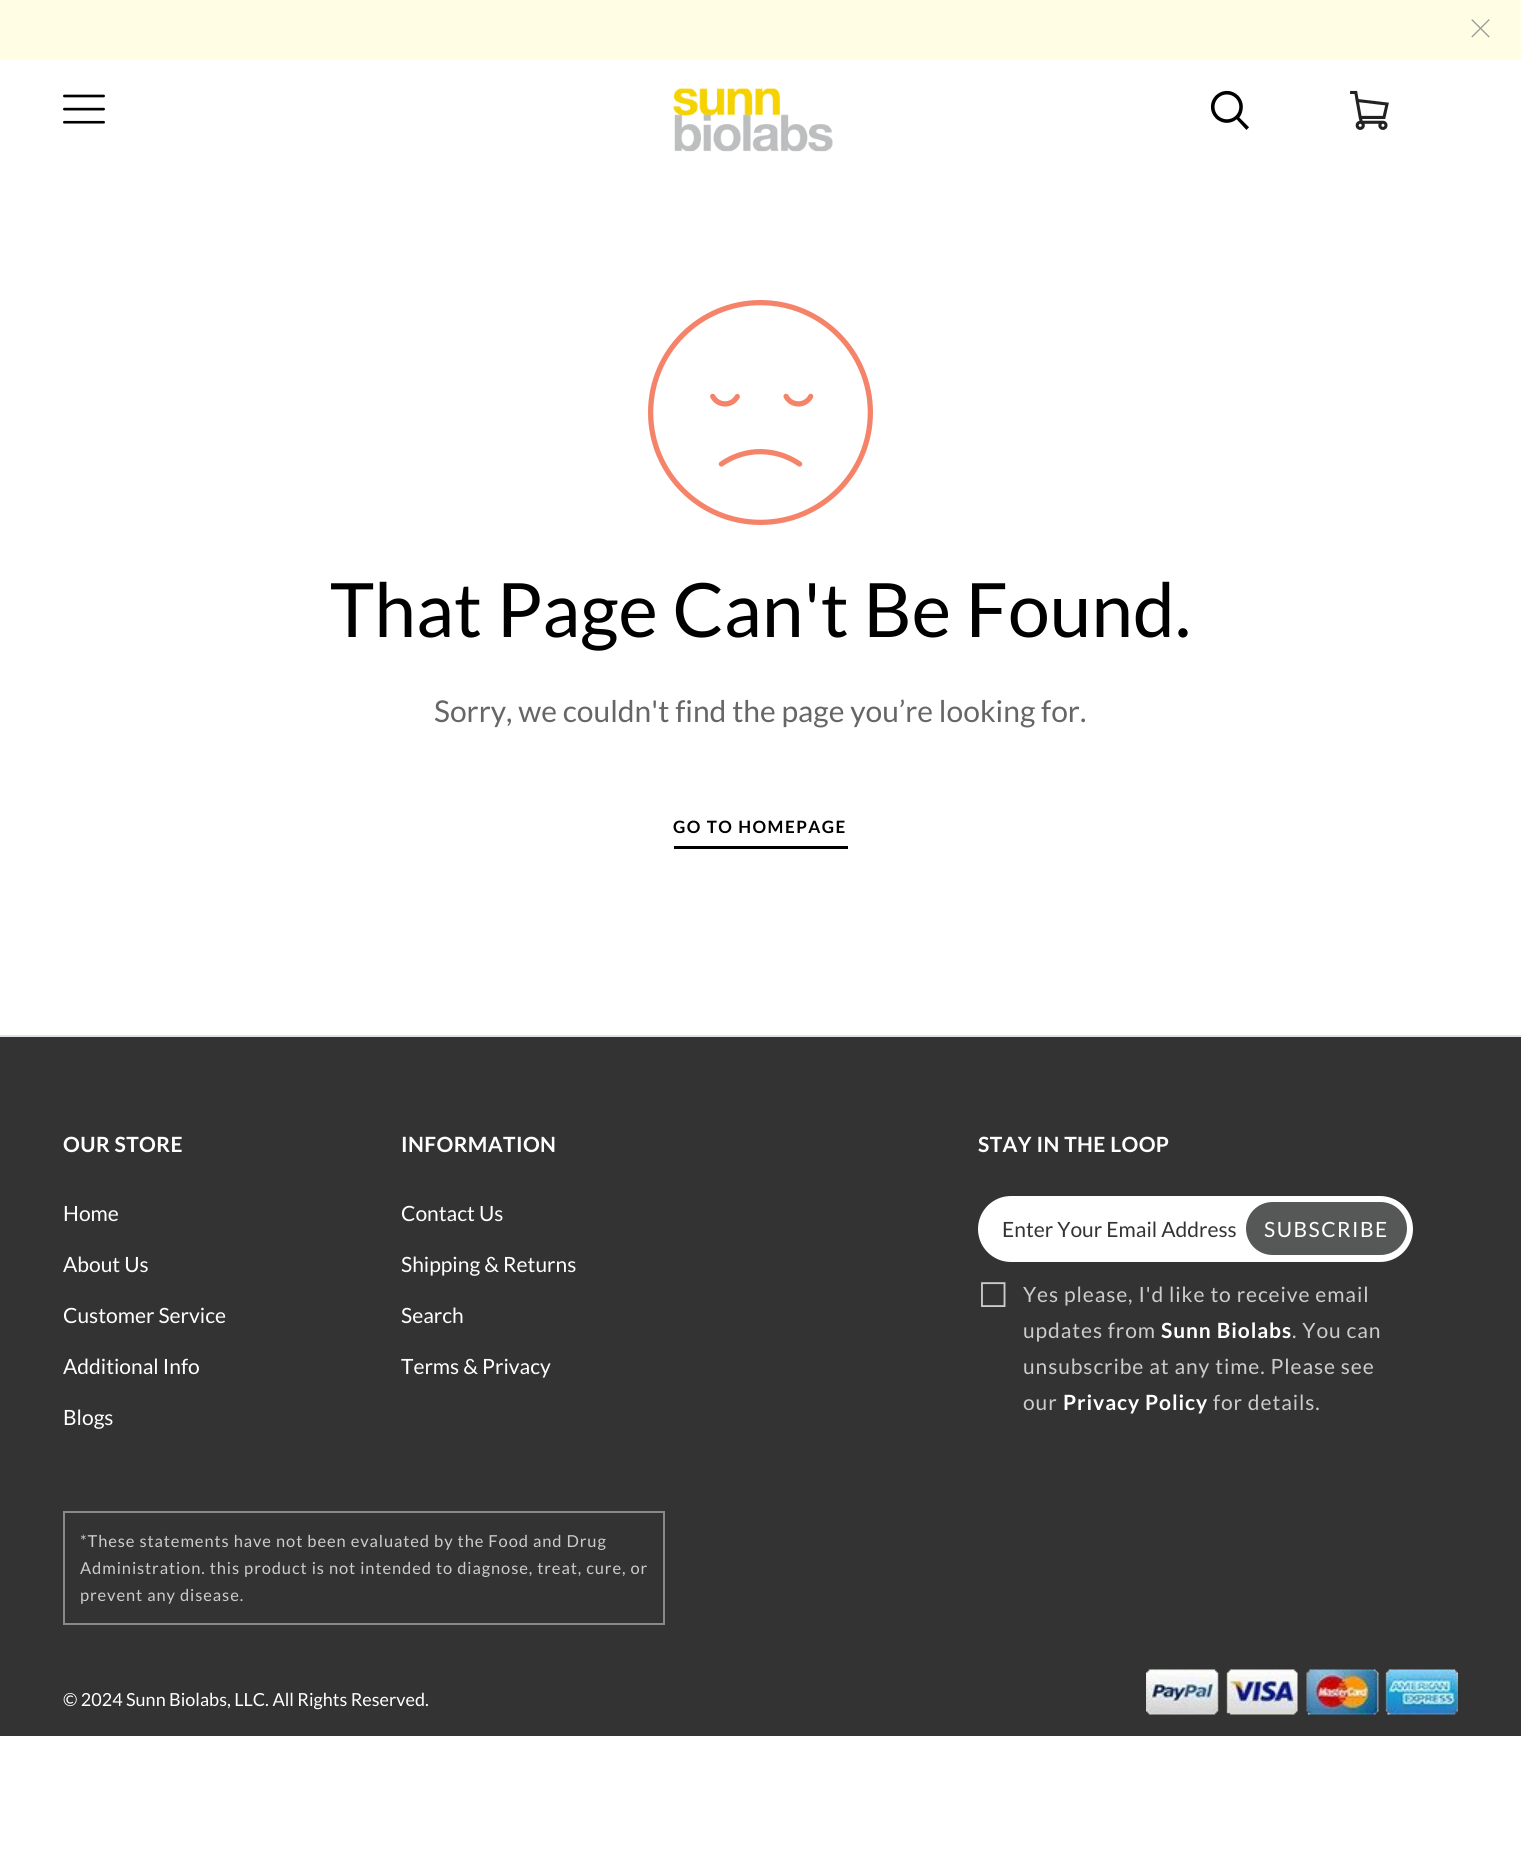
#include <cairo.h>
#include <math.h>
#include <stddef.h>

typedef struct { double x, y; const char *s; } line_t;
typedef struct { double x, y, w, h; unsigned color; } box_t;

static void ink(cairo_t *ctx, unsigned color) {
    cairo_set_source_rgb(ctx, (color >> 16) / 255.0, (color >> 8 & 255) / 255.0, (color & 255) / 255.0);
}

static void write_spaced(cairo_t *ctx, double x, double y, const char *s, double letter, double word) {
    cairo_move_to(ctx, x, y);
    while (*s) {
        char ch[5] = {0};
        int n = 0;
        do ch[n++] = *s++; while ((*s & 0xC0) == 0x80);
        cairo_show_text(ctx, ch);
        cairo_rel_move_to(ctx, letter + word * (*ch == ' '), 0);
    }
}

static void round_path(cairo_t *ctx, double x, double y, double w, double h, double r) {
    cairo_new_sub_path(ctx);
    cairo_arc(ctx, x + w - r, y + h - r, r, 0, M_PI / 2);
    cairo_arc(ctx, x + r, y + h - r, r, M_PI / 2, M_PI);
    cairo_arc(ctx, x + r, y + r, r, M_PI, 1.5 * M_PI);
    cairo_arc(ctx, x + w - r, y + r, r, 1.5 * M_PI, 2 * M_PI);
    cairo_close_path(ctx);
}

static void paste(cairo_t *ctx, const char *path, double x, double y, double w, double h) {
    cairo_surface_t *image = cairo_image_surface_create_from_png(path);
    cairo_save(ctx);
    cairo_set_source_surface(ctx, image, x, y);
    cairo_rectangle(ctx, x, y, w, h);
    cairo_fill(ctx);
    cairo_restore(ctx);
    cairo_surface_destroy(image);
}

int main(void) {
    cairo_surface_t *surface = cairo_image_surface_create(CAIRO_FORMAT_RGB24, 1521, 1860);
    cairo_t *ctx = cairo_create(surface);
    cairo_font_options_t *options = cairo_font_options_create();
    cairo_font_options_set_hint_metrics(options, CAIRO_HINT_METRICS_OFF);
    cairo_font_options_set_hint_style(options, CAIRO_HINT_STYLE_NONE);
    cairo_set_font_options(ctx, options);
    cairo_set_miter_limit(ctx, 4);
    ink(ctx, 0xFFFFFF);
    cairo_paint(ctx);
    ink(ctx, 0xFFFDE4);
    cairo_rectangle(ctx, 0, 0, 1521, 60);
    cairo_fill(ctx);
    paste(ctx, "media/1.png", 1471, 19, 19, 19);
    paste(ctx, "media/2.png", 63, 94, 42, 30);
    paste(ctx, "media/3.png", 673, 88, 160, 64);
    paste(ctx, "media/4.png", 1210, 90, 39, 40);
    paste(ctx, "media/5.png", 1350, 90, 39, 40);
    paste(ctx, "media/6.png", 648, 300, 225, 225);
    cairo_select_font_face(ctx, "Lato", CAIRO_FONT_SLANT_NORMAL, CAIRO_FONT_WEIGHT_NORMAL);
    cairo_set_font_size(ctx, 75);
    ink(ctx, 0x000000);
    cairo_move_to(ctx, 330, 637);
    cairo_show_text(ctx, "That Page Can't Be Found.");
    cairo_set_font_size(ctx, 30);
    ink(ctx, 0x666666);
    cairo_move_to(ctx, 434, 722);
    cairo_show_text(ctx, "Sorry, we couldn't find the page you’re looking for.");
    cairo_select_font_face(ctx, "Lato", CAIRO_FONT_SLANT_NORMAL, CAIRO_FONT_WEIGHT_BOLD);
    cairo_set_font_size(ctx, 17);
    ink(ctx, 0x000000);
    write_spaced(ctx, 673, 833, "GO TO HOMEPAGE", 1.5, 0);
    {
        static const box_t items[] = {
            {674, 846, 174, 3, 0x000000},
            {0, 1037, 1521, 699, 0x333333},
            {0, 1035, 1521, 2, 0xDEE2E6},
        };
        for (size_t i = 0; i < sizeof items / sizeof *items; i++) {
            ink(ctx, items[i].color);
            cairo_rectangle(ctx, items[i].x, items[i].y, items[i].w, items[i].h);
            cairo_fill(ctx);
        }
    }
    cairo_set_font_size(ctx, 21);
    ink(ctx, 0xFFFFFF);
    write_spaced(ctx, 63, 1152, "OUR STORE", 0.4, 0);
    cairo_select_font_face(ctx, "Lato", CAIRO_FONT_SLANT_NORMAL, CAIRO_FONT_WEIGHT_NORMAL);
    {
        static const line_t items[] = {
            {63, 1221, "Home"},
            {63, 1272, "About Us"},
            {63, 1323, "Customer Service"},
            {63, 1374, "Additional Info"},
            {63, 1425, "Blogs"},
        };
        for (size_t i = 0; i < sizeof items / sizeof *items; i++) {
            cairo_move_to(ctx, items[i].x, items[i].y);
            cairo_show_text(ctx, items[i].s);
        }
    }
    cairo_select_font_face(ctx, "Lato", CAIRO_FONT_SLANT_NORMAL, CAIRO_FONT_WEIGHT_BOLD);
    write_spaced(ctx, 401, 1152, "INFORMATION", 0.4, 0);
    cairo_select_font_face(ctx, "Lato", CAIRO_FONT_SLANT_NORMAL, CAIRO_FONT_WEIGHT_NORMAL);
    {
        static const line_t items[] = {
            {401, 1221, "Contact Us"},
            {401, 1272, "Shipping & Returns"},
            {401, 1323, "Search"},
            {401, 1374, "Terms & Privacy"},
        };
        for (size_t i = 0; i < sizeof items / sizeof *items; i++) {
            cairo_move_to(ctx, items[i].x, items[i].y);
            cairo_show_text(ctx, items[i].s);
        }
    }
    cairo_select_font_face(ctx, "Lato", CAIRO_FONT_SLANT_NORMAL, CAIRO_FONT_WEIGHT_BOLD);
    write_spaced(ctx, 978, 1152, "STAY IN THE LOOP", 0.4, 0);
    round_path(ctx, 979, 1197, 433, 64, 32);
    cairo_fill_preserve(ctx);
    cairo_stroke(ctx);
    cairo_select_font_face(ctx, "Lato", CAIRO_FONT_SLANT_NORMAL, CAIRO_FONT_WEIGHT_NORMAL);
    ink(ctx, 0x333333);
    cairo_move_to(ctx, 1002, 1237);
    cairo_show_text(ctx, "Enter Your Email Address");
    ink(ctx, 0x565857);
    round_path(ctx, 1245, 1201, 163, 55, 27.5);
    cairo_fill_preserve(ctx);
    ink(ctx, 0xFFFFFF);
    cairo_stroke(ctx);
    write_spaced(ctx, 1264, 1237, "SUBSCRIBE", 1.5, 0);
    cairo_select_font_face(ctx, "DejaVu Sans", CAIRO_FONT_SLANT_NORMAL, CAIRO_FONT_WEIGHT_NORMAL);
    cairo_set_font_size(ctx, 34);
    ink(ctx, 0xCCCCCC);
    cairo_move_to(ctx, 978, 1307);
    cairo_show_text(ctx, "☐");
    cairo_select_font_face(ctx, "Lato", CAIRO_FONT_SLANT_NORMAL, CAIRO_FONT_WEIGHT_NORMAL);
    cairo_set_font_size(ctx, 21);
    write_spaced(ctx, 1023, 1302, "Yes please, I'd like to receive email", 0.9, 0);
    write_spaced(ctx, 1023, 1338, "updates from", 0.9, 0);
    cairo_select_font_face(ctx, "Lato", CAIRO_FONT_SLANT_NORMAL, CAIRO_FONT_WEIGHT_BOLD);
    ink(ctx, 0xFFFFFF);
    write_spaced(ctx, 1161, 1338, "Sunn Biolabs", 0.9, 0);
    cairo_select_font_face(ctx, "Lato", CAIRO_FONT_SLANT_NORMAL, CAIRO_FONT_WEIGHT_NORMAL);
    ink(ctx, 0xCCCCCC);
    {
        static const line_t items[] = {
            {1292, 1338, ". You can"},
            {1023, 1374, "unsubscribe at any time. Please see"},
            {1023, 1410, "our"},
        };
        for (size_t i = 0; i < sizeof items / sizeof *items; i++) {
            write_spaced(ctx, items[i].x, items[i].y, items[i].s, 0.9, 0);
        }
    }
    cairo_select_font_face(ctx, "Lato", CAIRO_FONT_SLANT_NORMAL, CAIRO_FONT_WEIGHT_BOLD);
    ink(ctx, 0xFFFFFF);
    write_spaced(ctx, 1063, 1410, "Privacy Policy", 0.9, 0);
    cairo_select_font_face(ctx, "Lato", CAIRO_FONT_SLANT_NORMAL, CAIRO_FONT_WEIGHT_NORMAL);
    ink(ctx, 0xCCCCCC);
    write_spaced(ctx, 1213, 1410, "for details.", 0.9, 0);
    cairo_rectangle(ctx, 64, 1512, 600, 112);
    ink(ctx, 0x898989);
    cairo_stroke(ctx);
    cairo_set_font_size(ctx, 16.5);
    ink(ctx, 0xCCCCCC);
    {
        static const line_t items[] = {
            {80, 1547, "*These statements have not been evaluated by the Food and Drug"},
            {80, 1574, "Administration. this product is not intended to diagnose, treat, cure, or"},
            {80, 1601, "prevent any disease."},
        };
        for (size_t i = 0; i < sizeof items / sizeof *items; i++) {
            write_spaced(ctx, items[i].x, items[i].y, items[i].s, 0.9, 0);
        }
    }
    cairo_set_font_size(ctx, 18);
    ink(ctx, 0xFFFFFF);
    cairo_move_to(ctx, 63, 1706);
    cairo_show_text(ctx, "© 2024 Sunn Biolabs, LLC. All Rights Reserved.");
    paste(ctx, "media/7.png", 1146, 1669, 312, 46);
    cairo_surface_write_to_png(surface, "image.png");
    cairo_font_options_destroy(options);
    cairo_destroy(ctx);
    cairo_surface_destroy(surface);
    return 0;
}
